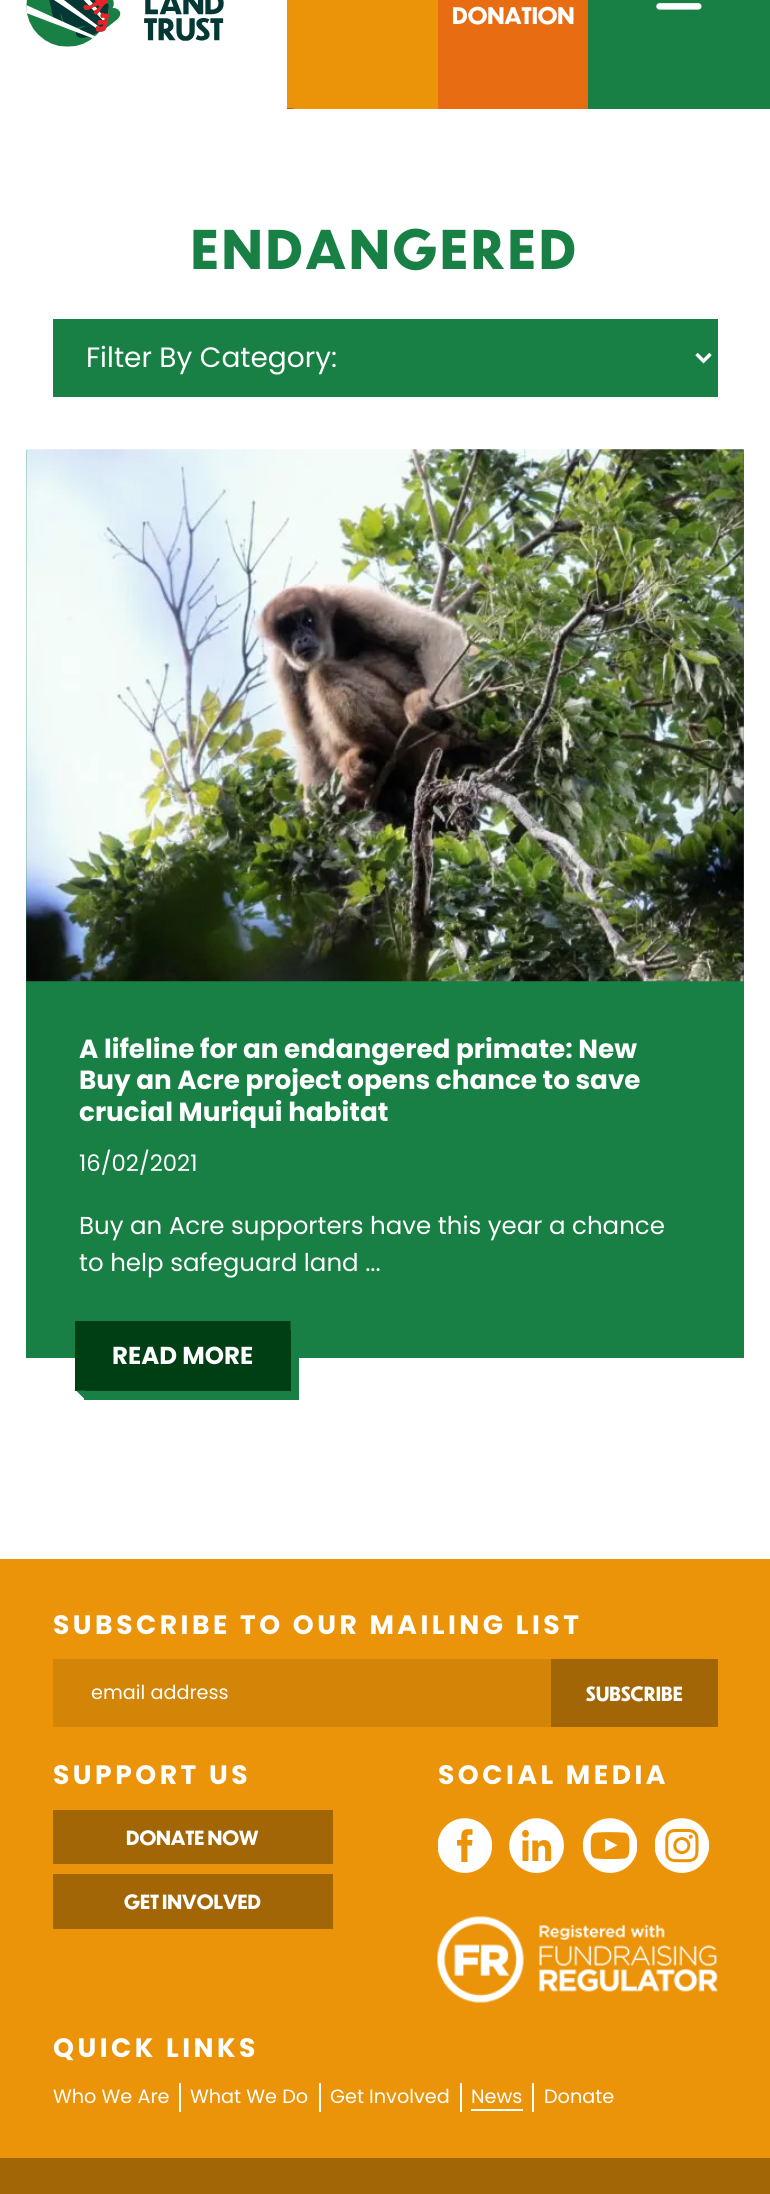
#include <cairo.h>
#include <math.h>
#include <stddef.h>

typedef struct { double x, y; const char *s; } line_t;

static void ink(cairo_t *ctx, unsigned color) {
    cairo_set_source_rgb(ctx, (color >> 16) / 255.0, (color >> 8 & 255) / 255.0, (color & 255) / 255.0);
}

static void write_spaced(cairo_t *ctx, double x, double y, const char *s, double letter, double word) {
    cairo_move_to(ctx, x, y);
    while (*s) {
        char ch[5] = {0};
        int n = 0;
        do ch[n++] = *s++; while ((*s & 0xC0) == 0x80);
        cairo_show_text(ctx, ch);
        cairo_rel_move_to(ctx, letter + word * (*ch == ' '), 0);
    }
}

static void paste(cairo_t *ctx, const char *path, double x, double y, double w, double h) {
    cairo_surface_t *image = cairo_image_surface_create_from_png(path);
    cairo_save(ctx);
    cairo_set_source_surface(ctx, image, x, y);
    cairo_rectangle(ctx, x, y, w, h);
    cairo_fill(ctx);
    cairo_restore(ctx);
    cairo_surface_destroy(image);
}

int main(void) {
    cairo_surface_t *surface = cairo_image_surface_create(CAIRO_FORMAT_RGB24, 770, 2194);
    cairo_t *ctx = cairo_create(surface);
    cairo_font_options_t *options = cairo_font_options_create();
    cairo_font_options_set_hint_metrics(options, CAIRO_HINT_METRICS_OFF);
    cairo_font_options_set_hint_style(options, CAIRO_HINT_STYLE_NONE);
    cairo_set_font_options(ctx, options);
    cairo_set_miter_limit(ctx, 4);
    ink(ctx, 0xFFFFFF);
    cairo_paint(ctx);
    paste(ctx, "media/1.png", 26, 0, 198, 47);
    ink(ctx, 0xEC9409);
    cairo_rectangle(ctx, 287, 0, 151, 109);
    cairo_fill(ctx);
    cairo_save(ctx);
    cairo_rectangle(ctx, 287, 0, 151, 109);
    cairo_clip(ctx);
    ink(ctx, 0xA26606);
    cairo_new_path(ctx);
    cairo_move_to(ctx, 284, 108);
    cairo_line_to(ctx, 292.5, 108);
    cairo_line_to(ctx, 301.5, 117);
    cairo_line_to(ctx, 292.5, 117);
    cairo_close_path(ctx);
    cairo_fill(ctx);
    cairo_restore(ctx);
    ink(ctx, 0xE86D12);
    cairo_rectangle(ctx, 438, 0, 150, 109);
    cairo_fill(ctx);
    cairo_select_font_face(ctx, "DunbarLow", CAIRO_FONT_SLANT_NORMAL, CAIRO_FONT_WEIGHT_BOLD);
    cairo_set_font_size(ctx, 22.5);
    ink(ctx, 0xFFFFFF);
    cairo_move_to(ctx, 452, 24);
    cairo_show_text(ctx, "DONATION");
    ink(ctx, 0x188045);
    cairo_rectangle(ctx, 588, 0, 182, 109);
    cairo_fill(ctx);
    paste(ctx, "media/2.png", 656, 3, 46, 7);
    cairo_set_font_size(ctx, 52.5);
    write_spaced(ctx, 191, 269, "ENDANGERED", 3.5, 0);
    cairo_rectangle(ctx, 53, 319, 665, 78);
    cairo_fill(ctx);
    cairo_new_path(ctx);
    cairo_move_to(ctx, 696.5, 354);
    cairo_line_to(ctx, 703.5, 361);
    cairo_line_to(ctx, 710.5, 354);
    ink(ctx, 0xFFFFFF);
    cairo_set_line_width(ctx, 3.5);
    cairo_stroke(ctx);
    cairo_select_font_face(ctx, "Poppins", CAIRO_FONT_SLANT_NORMAL, CAIRO_FONT_WEIGHT_NORMAL);
    cairo_set_font_size(ctx, 28);
    cairo_move_to(ctx, 86, 367);
    cairo_show_text(ctx, "Filter By Category:");
    ink(ctx, 0x188045);
    cairo_rectangle(ctx, 26, 450, 718, 908);
    cairo_fill(ctx);
    paste(ctx, "media/3.png", 26, 449, 718, 533);
    cairo_select_font_face(ctx, "Poppins", CAIRO_FONT_SLANT_NORMAL, CAIRO_FONT_WEIGHT_BOLD);
    cairo_set_font_size(ctx, 26.25);
    ink(ctx, 0xFFFFFF);
    {
        static const line_t items[] = {
            {79, 1058, "A lifeline for an endangered primate: New"},
            {79, 1089, "Buy an Acre project opens chance to save"},
            {79, 1121, "crucial Muriqui habitat"},
        };
        for (size_t i = 0; i < sizeof items / sizeof *items; i++) {
            cairo_move_to(ctx, items[i].x, items[i].y);
            cairo_show_text(ctx, items[i].s);
        }
    }
    cairo_select_font_face(ctx, "Poppins", CAIRO_FONT_SLANT_NORMAL, CAIRO_FONT_WEIGHT_NORMAL);
    cairo_set_font_size(ctx, 22.75);
    cairo_move_to(ctx, 79, 1171);
    cairo_show_text(ctx, "16/02/2021");
    cairo_set_font_size(ctx, 24.5);
    cairo_move_to(ctx, 79, 1234);
    cairo_show_text(ctx, "Buy an Acre supporters have this year a chance");
    cairo_move_to(ctx, 79, 1271);
    cairo_show_text(ctx, "to help safeguard land ...");
    ink(ctx, 0x188045);
    cairo_new_path(ctx);
    cairo_move_to(ctx, 84, 1391);
    cairo_line_to(ctx, 84, 1400);
    cairo_line_to(ctx, 299, 1400);
    cairo_line_to(ctx, 299, 1330);
    cairo_line_to(ctx, 290, 1330);
    cairo_line_to(ctx, 290, 1391);
    cairo_close_path(ctx);
    cairo_fill(ctx);
    ink(ctx, 0x003E13);
    cairo_rectangle(ctx, 75, 1321, 216, 70);
    cairo_fill(ctx);
    ink(ctx, 0x188045);
    cairo_new_path(ctx);
    cairo_move_to(ctx, 299, 1330);
    cairo_line_to(ctx, 290.5, 1330);
    cairo_line_to(ctx, 290.5, 1321);
    cairo_close_path(ctx);
    cairo_fill(ctx);
    cairo_select_font_face(ctx, "Poppins", CAIRO_FONT_SLANT_NORMAL, CAIRO_FONT_WEIGHT_BOLD);
    ink(ctx, 0xFFFFFF);
    cairo_move_to(ctx, 112, 1364);
    cairo_show_text(ctx, "READ MORE");
    ink(ctx, 0x188045);
    cairo_new_path(ctx);
    cairo_move_to(ctx, 76, 1390.5);
    cairo_line_to(ctx, 85, 1390.5);
    cairo_line_to(ctx, 93.5, 1399.5);
    cairo_line_to(ctx, 85, 1399.5);
    cairo_close_path(ctx);
    cairo_fill(ctx);
    ink(ctx, 0xEC9409);
    cairo_rectangle(ctx, 0, 1559, 770, 599);
    cairo_fill(ctx);
    cairo_set_font_size(ctx, 26.6);
    ink(ctx, 0xFFFFFF);
    write_spaced(ctx, 53, 1634, "SUBSCRIBE TO OUR MAILING LIST", 3.5, 0);
    ink(ctx, 0xD38508);
    cairo_rectangle(ctx, 53, 1659, 498, 68);
    cairo_fill(ctx);
    cairo_select_font_face(ctx, "Poppins", CAIRO_FONT_SLANT_NORMAL, CAIRO_FONT_WEIGHT_NORMAL);
    cairo_set_font_size(ctx, 19.25);
    ink(ctx, 0xFFFFFF);
    cairo_move_to(ctx, 91, 1699);
    cairo_show_text(ctx, "email address");
    ink(ctx, 0xA26606);
    cairo_rectangle(ctx, 551, 1659, 167, 68);
    cairo_fill(ctx);
    cairo_select_font_face(ctx, "DunbarLow", CAIRO_FONT_SLANT_NORMAL, CAIRO_FONT_WEIGHT_BOLD);
    ink(ctx, 0xFFFFFF);
    cairo_move_to(ctx, 586, 1701);
    cairo_show_text(ctx, "SUBSCRIBE");
    cairo_select_font_face(ctx, "Poppins", CAIRO_FONT_SLANT_NORMAL, CAIRO_FONT_WEIGHT_BOLD);
    cairo_set_font_size(ctx, 26.6);
    write_spaced(ctx, 53, 1784, "SUPPORT US", 3.5, 0);
    ink(ctx, 0xA26606);
    cairo_rectangle(ctx, 53, 1810, 280, 54);
    cairo_fill(ctx);
    cairo_select_font_face(ctx, "DunbarLow", CAIRO_FONT_SLANT_NORMAL, CAIRO_FONT_WEIGHT_BOLD);
    cairo_set_font_size(ctx, 19.25);
    ink(ctx, 0xFFFFFF);
    cairo_move_to(ctx, 126, 1845);
    cairo_show_text(ctx, "DONATE NOW");
    ink(ctx, 0xA26606);
    cairo_rectangle(ctx, 53, 1874, 280, 55);
    cairo_fill(ctx);
    ink(ctx, 0xFFFFFF);
    cairo_move_to(ctx, 124, 1909);
    cairo_show_text(ctx, "GET INVOLVED");
    cairo_select_font_face(ctx, "Poppins", CAIRO_FONT_SLANT_NORMAL, CAIRO_FONT_WEIGHT_BOLD);
    cairo_set_font_size(ctx, 26.6);
    write_spaced(ctx, 438, 1784, "SOCIAL MEDIA", 3.5, 0);
    paste(ctx, "media/4.png", 438, 1818, 54, 55);
    paste(ctx, "media/5.png", 509, 1818, 55, 55);
    paste(ctx, "media/6.png", 583, 1818, 54, 55);
    paste(ctx, "media/7.png", 655, 1818, 54, 55);
    paste(ctx, "media/8.png", 437, 1916, 281, 87);
    write_spaced(ctx, 53, 2057, "QUICK LINKS", 3.5, 0);
    cairo_rectangle(ctx, 179, 2083, 2, 29);
    cairo_fill(ctx);
    cairo_select_font_face(ctx, "Poppins", CAIRO_FONT_SLANT_NORMAL, CAIRO_FONT_WEIGHT_NORMAL);
    cairo_set_font_size(ctx, 19.25);
    cairo_move_to(ctx, 53, 2103);
    cairo_show_text(ctx, "Who We Are");
    cairo_rectangle(ctx, 319, 2083, 2, 29);
    cairo_fill(ctx);
    cairo_move_to(ctx, 190, 2103);
    cairo_show_text(ctx, "What We Do");
    cairo_rectangle(ctx, 460, 2083, 2, 29);
    cairo_fill(ctx);
    cairo_move_to(ctx, 330, 2103);
    cairo_show_text(ctx, "Get Involved");
    cairo_rectangle(ctx, 532, 2083, 2, 29);
    cairo_fill(ctx);
    cairo_move_to(ctx, 471, 2103);
    cairo_show_text(ctx, "News");
    cairo_rectangle(ctx, 471, 2109, 52, 2);
    cairo_fill(ctx);
    cairo_move_to(ctx, 544, 2103);
    cairo_show_text(ctx, "Donate");
    ink(ctx, 0xA26606);
    cairo_rectangle(ctx, 0, 2158, 770, 36);
    cairo_fill(ctx);
    cairo_surface_write_to_png(surface, "image.png");
    cairo_font_options_destroy(options);
    cairo_destroy(ctx);
    cairo_surface_destroy(surface);
    return 0;
}
